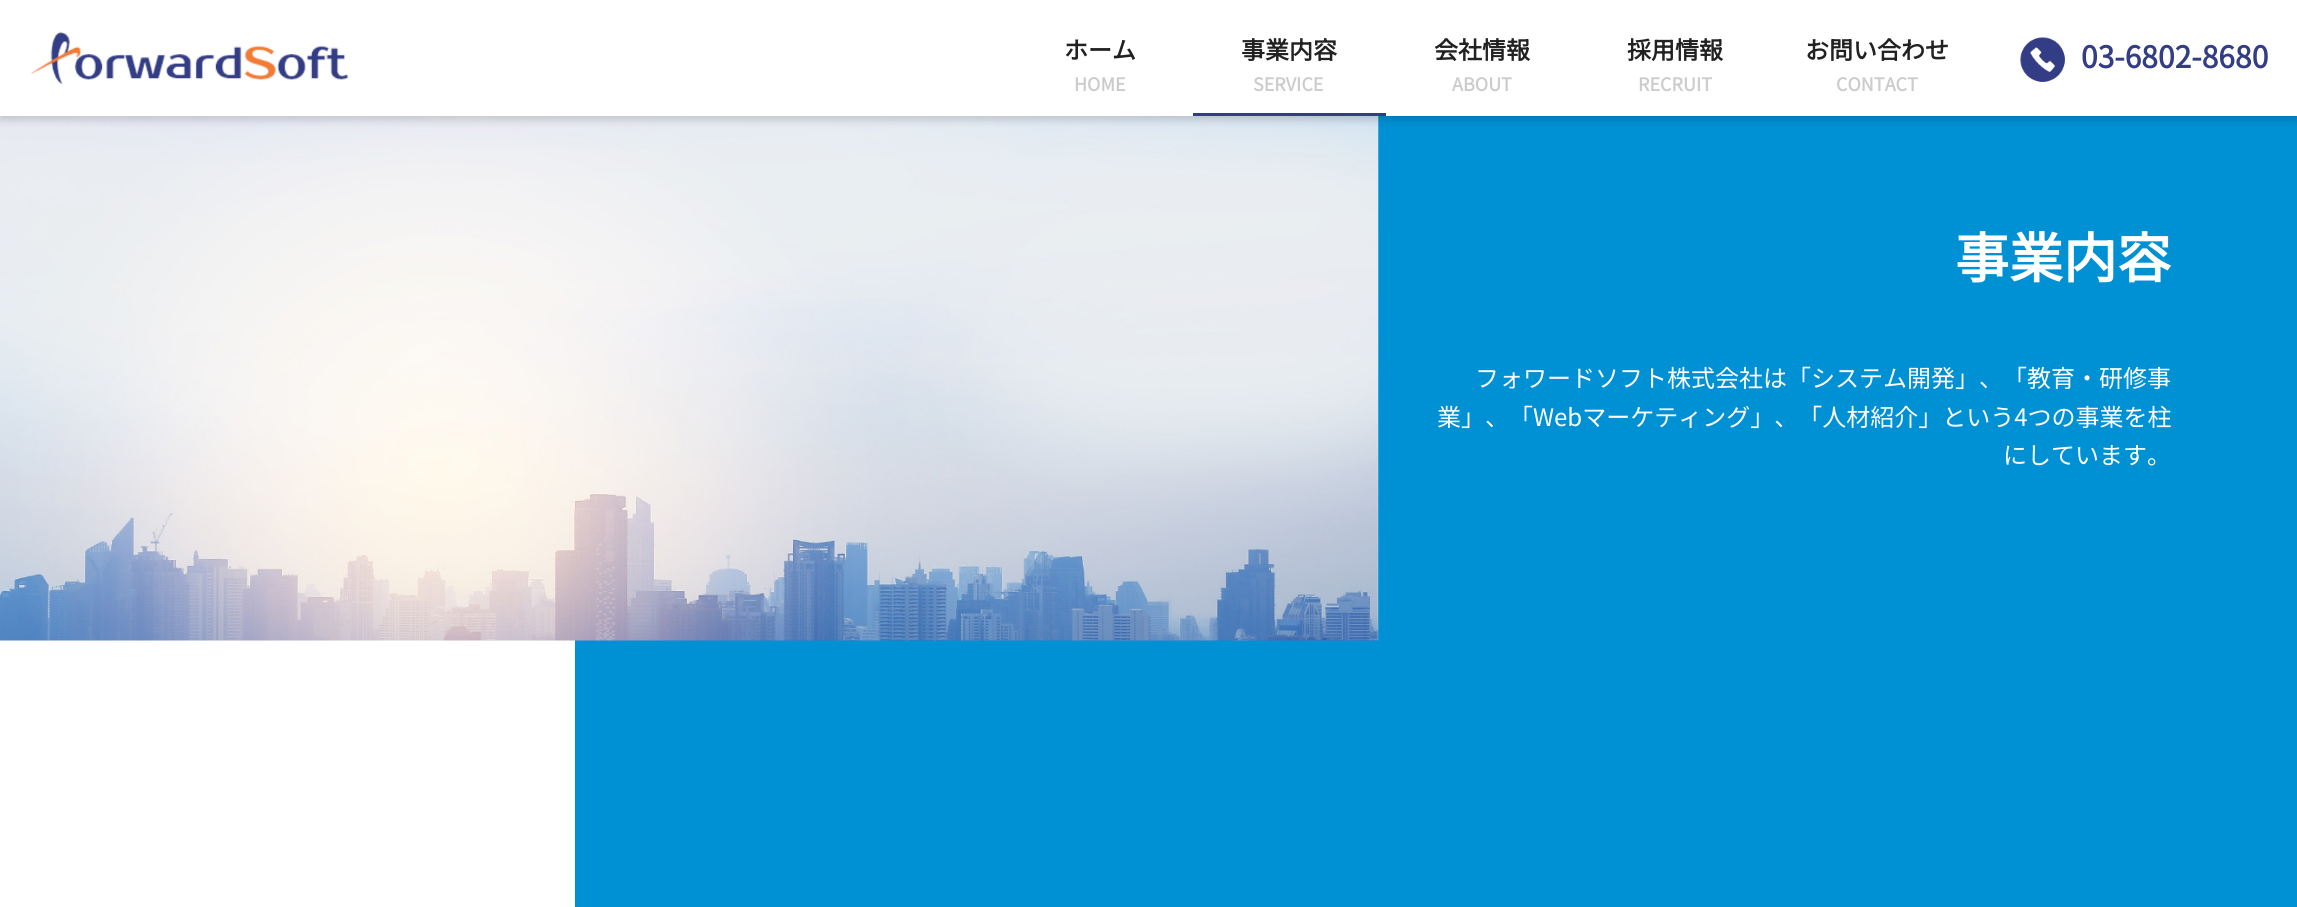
#include <cairo.h>
#include <math.h>
#include <stddef.h>

typedef struct { double x, y; const char *s; } line_t;

static void ink(cairo_t *ctx, unsigned color) {
    cairo_set_source_rgb(ctx, (color >> 16) / 255.0, (color >> 8 & 255) / 255.0, (color & 255) / 255.0);
}

static void round_path(cairo_t *ctx, double x, double y, double w, double h, double r) {
    cairo_new_sub_path(ctx);
    cairo_arc(ctx, x + w - r, y + h - r, r, 0, M_PI / 2);
    cairo_arc(ctx, x + r, y + h - r, r, M_PI / 2, M_PI);
    cairo_arc(ctx, x + r, y + r, r, M_PI, 1.5 * M_PI);
    cairo_arc(ctx, x + w - r, y + r, r, 1.5 * M_PI, 2 * M_PI);
    cairo_close_path(ctx);
}

static void blur_box(cairo_t *ctx, double x, double y, double w, double h, double r, double blur, double alpha) {
    cairo_push_group_with_content(ctx, CAIRO_CONTENT_ALPHA);
    cairo_set_operator(ctx, CAIRO_OPERATOR_SOURCE);
    for (int i = 15; i >= -15 && fmin(w, h) + blur * i / 3 > 0; i -= 2) {
        double e = blur * i / 6;
        cairo_set_source_rgba(ctx, 0, 0, 0, alpha * erfc((i - 1) / 8.5) / 2);
        round_path(ctx, x - e, y - e, w + 2 * e, h + 2 * e, fmax(0, fmin(r + e + blur * .6, fmin(w, h) / 2 + e)));
        cairo_fill(ctx);
    }
    cairo_pattern_t *soft = cairo_pop_group(ctx);
    cairo_mask(ctx, soft);
    cairo_pattern_destroy(soft);
}

static void paste(cairo_t *ctx, const char *path, double x, double y, double w, double h) {
    cairo_surface_t *image = cairo_image_surface_create_from_png(path);
    cairo_save(ctx);
    cairo_set_source_surface(ctx, image, x, y);
    cairo_rectangle(ctx, x, y, w, h);
    cairo_fill(ctx);
    cairo_restore(ctx);
    cairo_surface_destroy(image);
}

int main(void) {
    cairo_surface_t *surface = cairo_image_surface_create(CAIRO_FORMAT_RGB24, 2297, 907);
    cairo_t *ctx = cairo_create(surface);
    cairo_font_options_t *options = cairo_font_options_create();
    cairo_font_options_set_hint_metrics(options, CAIRO_HINT_METRICS_OFF);
    cairo_font_options_set_hint_style(options, CAIRO_HINT_STYLE_NONE);
    cairo_set_font_options(ctx, options);
    cairo_set_miter_limit(ctx, 4);
    ink(ctx, 0xFFFFFF);
    cairo_paint(ctx);
    ink(ctx, 0x0090D4);
    cairo_rectangle(ctx, 575, 116, 1722, 791);
    cairo_fill(ctx);
    paste(ctx, "media/3.png", 0, 116, 1379, 525);
    ink(ctx, 0x000000);
    blur_box(ctx, 0, 5, 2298, 115, 0, 4.5, 0.16);
    ink(ctx, 0xFFFFFF);
    cairo_rectangle(ctx, 0, 0, 2297, 116);
    cairo_fill(ctx);
    paste(ctx, "media/1.png", 31, 31, 318, 54);
    cairo_select_font_face(ctx, "Noto Sans JP", CAIRO_FONT_SLANT_NORMAL, CAIRO_FONT_WEIGHT_BOLD);
    cairo_set_font_size(ctx, 24);
    ink(ctx, 0x222222);
    cairo_move_to(ctx, 1064, 59);
    cairo_show_text(ctx, "ホーム");
    cairo_set_font_size(ctx, 18);
    ink(ctx, 0xCCCCCC);
    cairo_move_to(ctx, 1074, 91);
    cairo_show_text(ctx, "HOME");
    cairo_set_font_size(ctx, 24);
    ink(ctx, 0x222222);
    cairo_move_to(ctx, 1241, 59);
    cairo_show_text(ctx, "事業内容");
    cairo_set_font_size(ctx, 18);
    ink(ctx, 0xCCCCCC);
    cairo_move_to(ctx, 1253, 91);
    cairo_show_text(ctx, "SERVICE");
    ink(ctx, 0x333D85);
    cairo_rectangle(ctx, 1193, 113, 193, 3);
    cairo_fill(ctx);
    cairo_set_font_size(ctx, 24);
    ink(ctx, 0x222222);
    cairo_move_to(ctx, 1434, 59);
    cairo_show_text(ctx, "会社情報");
    cairo_set_font_size(ctx, 18);
    ink(ctx, 0xCCCCCC);
    cairo_move_to(ctx, 1452, 91);
    cairo_show_text(ctx, "ABOUT");
    cairo_set_font_size(ctx, 24);
    ink(ctx, 0x222222);
    cairo_move_to(ctx, 1627, 59);
    cairo_show_text(ctx, "採用情報");
    cairo_set_font_size(ctx, 18);
    ink(ctx, 0xCCCCCC);
    cairo_move_to(ctx, 1638, 91);
    cairo_show_text(ctx, "RECRUIT");
    cairo_set_font_size(ctx, 24);
    ink(ctx, 0x222222);
    cairo_move_to(ctx, 1805, 59);
    cairo_show_text(ctx, "お問い合わせ");
    cairo_set_font_size(ctx, 18);
    ink(ctx, 0xCCCCCC);
    cairo_move_to(ctx, 1836, 91);
    cairo_show_text(ctx, "CONTACT");
    paste(ctx, "media/2.png", 2020, 37, 45, 45);
    cairo_set_font_size(ctx, 30);
    ink(ctx, 0x333D85);
    cairo_move_to(ctx, 2081, 68);
    cairo_show_text(ctx, "03-6802-8680");
    cairo_set_font_size(ctx, 54);
    ink(ctx, 0xFFFFFF);
    cairo_move_to(ctx, 1955, 278);
    cairo_show_text(ctx, "事業内容");
    cairo_select_font_face(ctx, "Noto Sans JP Thin", CAIRO_FONT_SLANT_NORMAL, CAIRO_FONT_WEIGHT_NORMAL);
    cairo_set_font_size(ctx, 24);
    {
        static const line_t items[] = {
            {1475, 387, "フォワードソフト株式会社は「システム開発」、「教育・研修事"},
            {1437, 426, "業」、「Webマーケティング」、「人材紹介」という4つの事業を柱"},
            {2003, 464, "にしています。"},
        };
        for (size_t i = 0; i < sizeof items / sizeof *items; i++) {
            cairo_move_to(ctx, items[i].x, items[i].y);
            cairo_show_text(ctx, items[i].s);
        }
    }
    cairo_surface_write_to_png(surface, "image.png");
    cairo_font_options_destroy(options);
    cairo_destroy(ctx);
    cairo_surface_destroy(surface);
    return 0;
}
